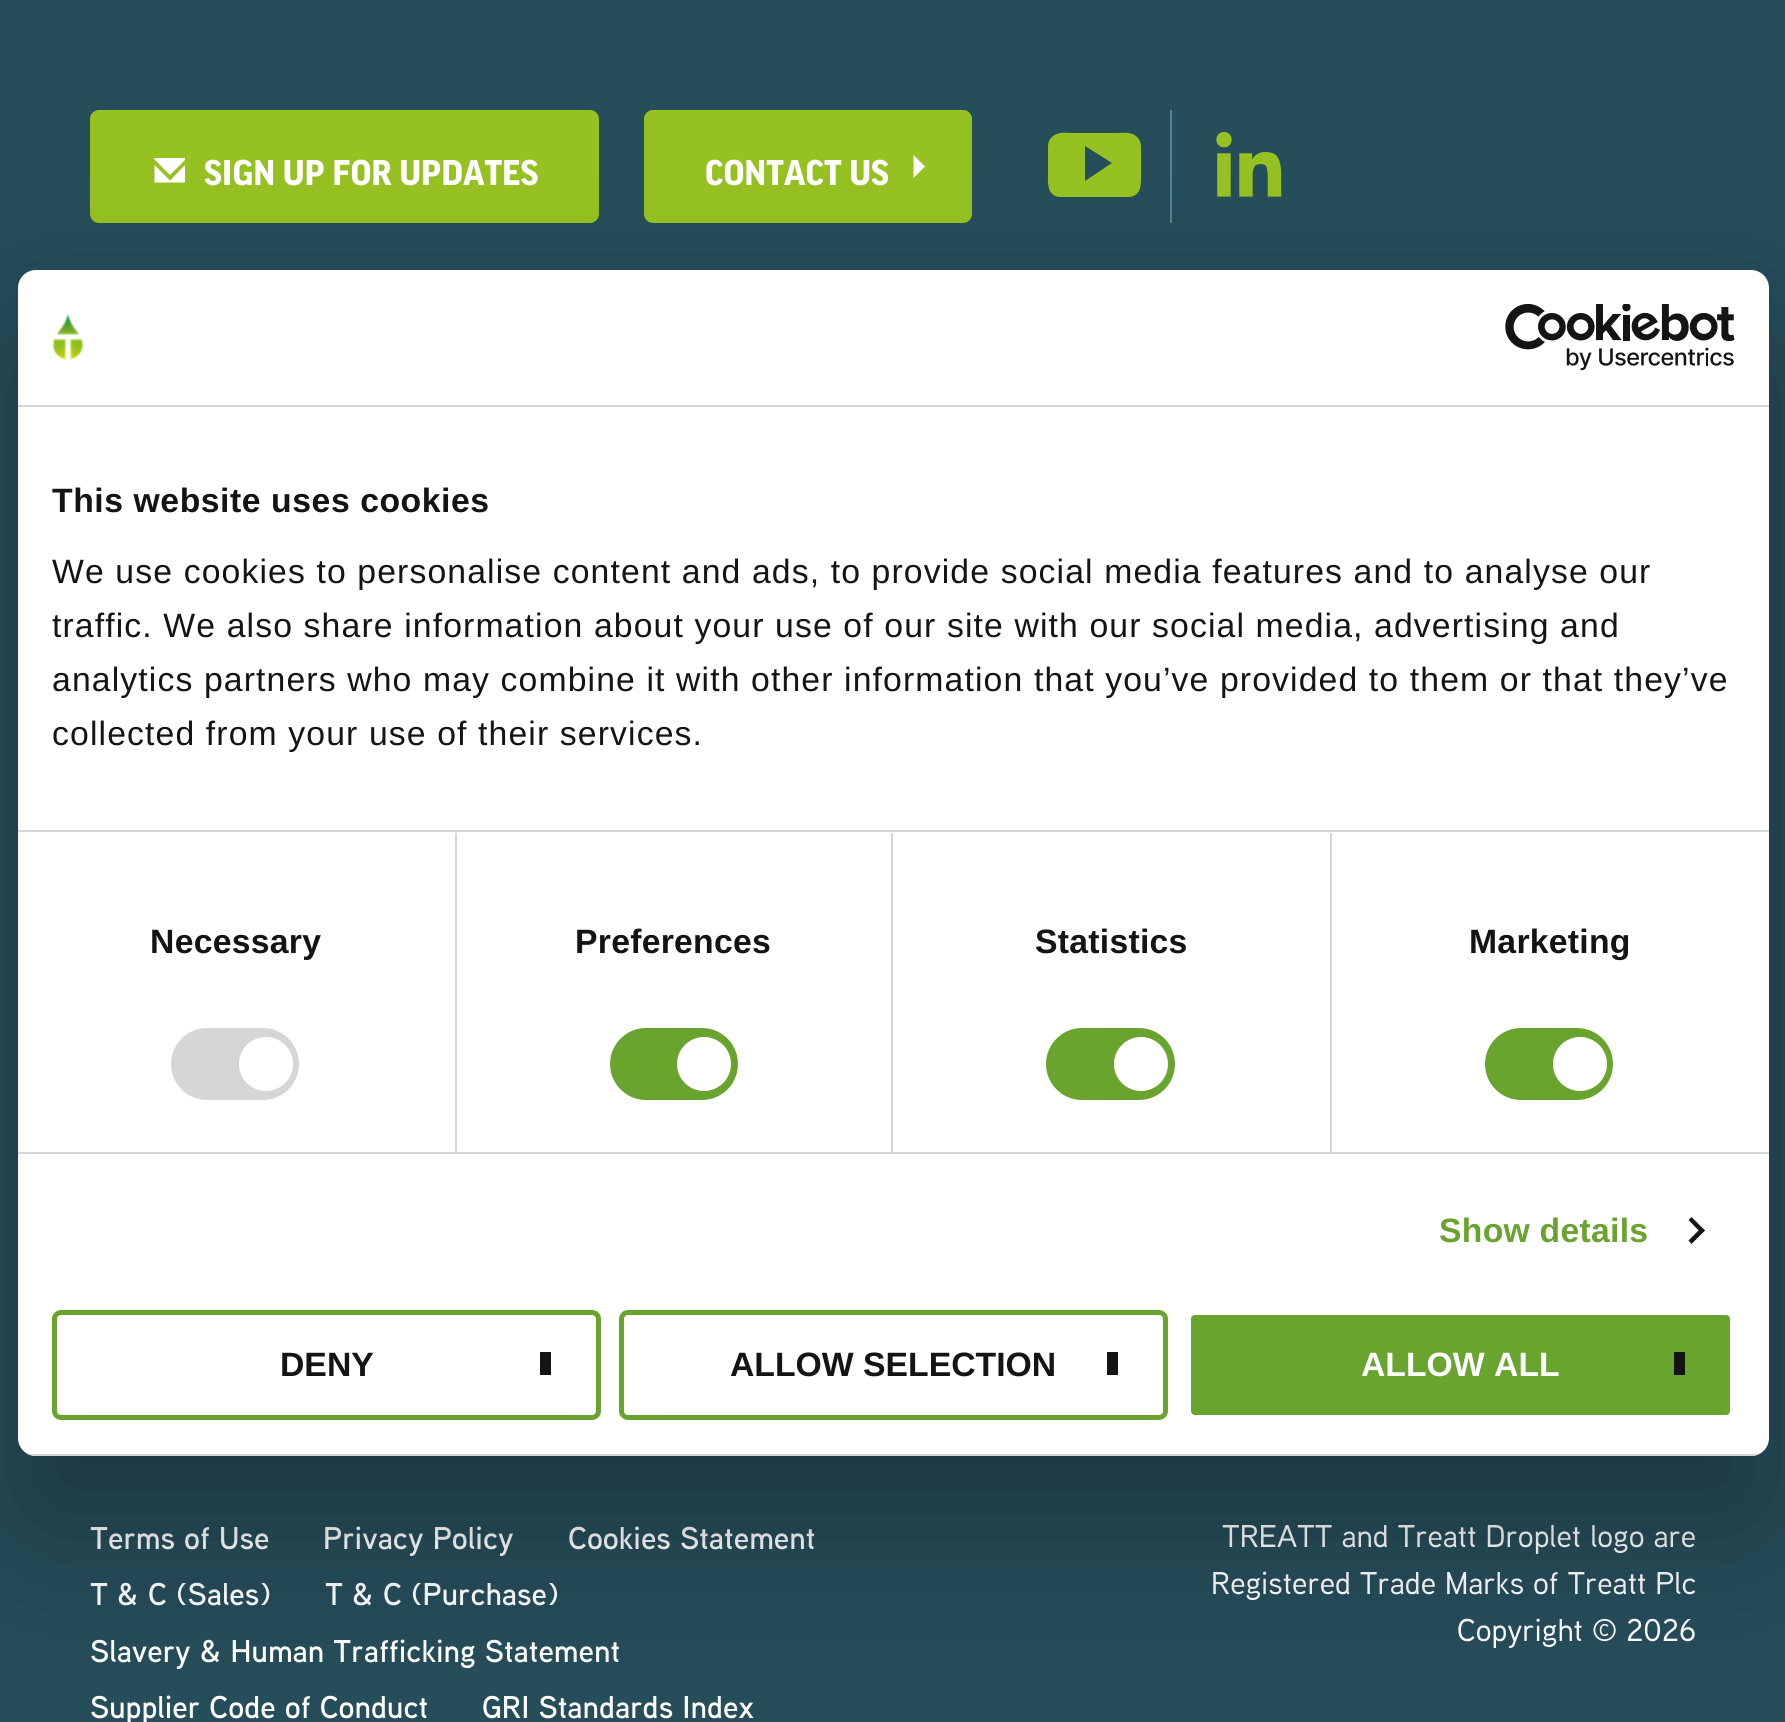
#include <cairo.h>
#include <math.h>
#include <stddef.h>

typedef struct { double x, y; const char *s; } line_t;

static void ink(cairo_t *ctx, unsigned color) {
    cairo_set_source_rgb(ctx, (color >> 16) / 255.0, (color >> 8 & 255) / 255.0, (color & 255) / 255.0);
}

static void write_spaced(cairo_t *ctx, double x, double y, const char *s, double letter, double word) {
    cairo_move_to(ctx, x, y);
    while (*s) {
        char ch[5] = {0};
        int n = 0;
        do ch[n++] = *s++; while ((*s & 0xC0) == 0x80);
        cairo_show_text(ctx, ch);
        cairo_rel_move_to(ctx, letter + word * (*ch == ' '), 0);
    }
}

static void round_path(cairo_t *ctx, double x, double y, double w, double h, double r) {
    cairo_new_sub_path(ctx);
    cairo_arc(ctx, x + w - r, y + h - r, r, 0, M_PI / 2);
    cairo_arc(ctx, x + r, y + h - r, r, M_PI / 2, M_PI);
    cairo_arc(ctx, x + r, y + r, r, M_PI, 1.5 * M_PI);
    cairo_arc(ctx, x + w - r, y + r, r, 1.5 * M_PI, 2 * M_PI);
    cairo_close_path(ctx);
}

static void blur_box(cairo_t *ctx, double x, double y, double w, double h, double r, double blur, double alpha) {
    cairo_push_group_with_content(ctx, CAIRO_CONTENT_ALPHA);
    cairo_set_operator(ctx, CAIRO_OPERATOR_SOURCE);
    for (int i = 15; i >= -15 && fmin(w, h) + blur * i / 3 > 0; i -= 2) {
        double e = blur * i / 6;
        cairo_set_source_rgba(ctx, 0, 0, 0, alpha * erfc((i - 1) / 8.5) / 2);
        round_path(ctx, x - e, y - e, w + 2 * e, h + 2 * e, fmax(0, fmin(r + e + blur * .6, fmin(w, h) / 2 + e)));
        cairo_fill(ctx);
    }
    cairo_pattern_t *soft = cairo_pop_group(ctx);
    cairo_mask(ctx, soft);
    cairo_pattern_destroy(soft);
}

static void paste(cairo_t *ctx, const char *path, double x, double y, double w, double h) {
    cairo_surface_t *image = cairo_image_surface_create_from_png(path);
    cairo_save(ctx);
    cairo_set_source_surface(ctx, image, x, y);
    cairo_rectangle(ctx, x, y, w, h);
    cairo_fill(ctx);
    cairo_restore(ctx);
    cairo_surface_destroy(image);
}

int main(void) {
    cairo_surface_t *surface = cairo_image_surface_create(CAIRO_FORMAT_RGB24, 1785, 1722);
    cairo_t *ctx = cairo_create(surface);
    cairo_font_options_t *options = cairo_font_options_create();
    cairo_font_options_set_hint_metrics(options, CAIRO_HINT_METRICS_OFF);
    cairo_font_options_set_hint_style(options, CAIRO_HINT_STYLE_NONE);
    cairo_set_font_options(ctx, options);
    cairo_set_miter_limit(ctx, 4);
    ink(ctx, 0x264D5A);
    cairo_paint(ctx);
    ink(ctx, 0x95C121);
    round_path(ctx, 90, 110, 509, 113, 9);
    cairo_fill(ctx);
    ink(ctx, 0xFFFFFF);
    cairo_new_path(ctx);
    cairo_move_to(ctx, 154.5, 159.5);
    cairo_line_to(ctx, 170, 175);
    cairo_line_to(ctx, 185, 160);
    cairo_line_to(ctx, 185, 158);
    cairo_line_to(ctx, 154.5, 158);
    cairo_close_path(ctx);
    cairo_move_to(ctx, 170, 180.5);
    cairo_line_to(ctx, 154.5, 165);
    cairo_line_to(ctx, 154.5, 182.5);
    cairo_line_to(ctx, 185, 182.5);
    cairo_line_to(ctx, 185, 165);
    cairo_close_path(ctx);
    cairo_fill(ctx);
    cairo_select_font_face(ctx, "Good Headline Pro", CAIRO_FONT_SLANT_NORMAL, CAIRO_FONT_WEIGHT_BOLD);
    cairo_set_font_size(ctx, 38.25);
    cairo_move_to(ctx, 204, 185);
    cairo_show_text(ctx, "SIGN UP FOR UPDATES");
    ink(ctx, 0x95C121);
    round_path(ctx, 644, 110, 328, 113, 9);
    cairo_fill(ctx);
    ink(ctx, 0xFFFFFF);
    cairo_move_to(ctx, 705, 185);
    cairo_show_text(ctx, "CONTACT US");
    cairo_new_path(ctx);
    cairo_move_to(ctx, 913.5, 178);
    cairo_line_to(ctx, 913.5, 155);
    cairo_line_to(ctx, 925, 166.5);
    cairo_close_path(ctx);
    cairo_fill(ctx);
    ink(ctx, 0x4E8493);
    cairo_rectangle(ctx, 1170, 110, 2, 113);
    cairo_fill(ctx);
    ink(ctx, 0x95C121);
    cairo_new_path(ctx);
    cairo_move_to(ctx, 1141, 147);
    cairo_curve_to(ctx, 1141, 143, 1140, 140, 1138, 138);
    cairo_curve_to(ctx, 1132, 131, 1124, 133, 1116, 133);
    cairo_line_to(ctx, 1073, 133);
    cairo_curve_to(ctx, 1065, 133, 1057, 131, 1051, 138);
    cairo_curve_to(ctx, 1049, 140, 1048, 143, 1048, 147);
    cairo_line_to(ctx, 1048, 171);
    cairo_curve_to(ctx, 1048, 181, 1046, 195, 1059, 197);
    cairo_line_to(ctx, 1130, 197);
    cairo_curve_to(ctx, 1143, 195, 1141, 181, 1141, 171);
    cairo_close_path(ctx);
    cairo_move_to(ctx, 1085, 181);
    cairo_line_to(ctx, 1085, 146);
    cairo_line_to(ctx, 1112, 163);
    cairo_close_path(ctx);
    cairo_fill(ctx);
    paste(ctx, "media/1.png", 1216, 131, 66, 66);
    cairo_select_font_face(ctx, "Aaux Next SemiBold", CAIRO_FONT_SLANT_NORMAL, CAIRO_FONT_WEIGHT_NORMAL);
    cairo_set_font_size(ctx, 31.5);
    ink(ctx, 0xFFFFFF);
    {
        static const line_t items[] = {
            {90, 1549, "Terms of Use"},
            {323, 1549, "Privacy Policy"},
            {568, 1549, "Cookies Statement"},
            {90, 1605, "T & C (Sales)"},
            {325, 1605, "T & C (Purchase)"},
            {90, 1662, "Slavery & Human Trafficking Statement"},
            {90, 1718, "Supplier Code of Conduct"},
            {482, 1718, "GRI Standards Index"},
        };
        for (size_t i = 0; i < sizeof items / sizeof *items; i++) {
            cairo_move_to(ctx, items[i].x, items[i].y);
            cairo_show_text(ctx, items[i].s);
        }
    }
    cairo_select_font_face(ctx, "Aaux Next Medium", CAIRO_FONT_SLANT_NORMAL, CAIRO_FONT_WEIGHT_NORMAL);
    {
        static const line_t items[] = {
            {1222, 1547, "TREATT and Treatt Droplet logo are"},
            {1211, 1594, "Registered Trade Marks of Treatt Plc"},
            {1457, 1641, "Copyright © 2026"},
        };
        for (size_t i = 0; i < sizeof items / sizeof *items; i++) {
            cairo_move_to(ctx, items[i].x, items[i].y);
            cairo_show_text(ctx, items[i].s);
        }
    }
    ink(ctx, 0x000000);
    blur_box(ctx, 18, 342, 1751, 1186, 18, 76.5, 0.3);
    ink(ctx, 0xFFFFFF);
    round_path(ctx, 18, 270, 1751, 1186, 18);
    cairo_fill(ctx);
    ink(ctx, 0xD6D6D6);
    cairo_rectangle(ctx, 18, 405, 1751, 2);
    cairo_fill(ctx);
    paste(ctx, "media/2.png", 52, 314, 32, 46);
    paste(ctx, "media/3.png", 1505, 304, 230, 67);
    cairo_rectangle(ctx, 18, 830, 1751, 2);
    cairo_fill(ctx);
    cairo_select_font_face(ctx, "Liberation Sans", CAIRO_FONT_SLANT_NORMAL, CAIRO_FONT_WEIGHT_BOLD);
    cairo_set_font_size(ctx, 33.75);
    ink(ctx, 0x141414);
    write_spaced(ctx, 52, 512, "This website uses cookies", 0.55, 0);
    cairo_select_font_face(ctx, "Liberation Sans", CAIRO_FONT_SLANT_NORMAL, CAIRO_FONT_WEIGHT_NORMAL);
    {
        static const line_t items[] = {
            {52, 583, "We use cookies to personalise content and ads, to provide social media features and to analyse our"},
            {52, 637, "traffic. We also share information about your use of our site with our social media, advertising and"},
            {52, 691, "analytics partners who may combine it with other information that you’ve provided to them or that they’ve"},
            {52, 745, "collected from your use of their services."},
        };
        for (size_t i = 0; i < sizeof items / sizeof *items; i++) {
            write_spaced(ctx, items[i].x, items[i].y, items[i].s, 1.12, 0);
        }
    }
    ink(ctx, 0xD6D6D6);
    cairo_rectangle(ctx, 18, 1152, 1751, 2);
    cairo_fill(ctx);
    cairo_rectangle(ctx, 455, 833, 2, 319);
    cairo_fill(ctx);
    cairo_select_font_face(ctx, "Liberation Sans", CAIRO_FONT_SLANT_NORMAL, CAIRO_FONT_WEIGHT_BOLD);
    ink(ctx, 0x141414);
    write_spaced(ctx, 150, 953, "Necessary", 0.25, 0);
    ink(ctx, 0xD6D6D6);
    round_path(ctx, 171, 1028, 128, 72, 36);
    cairo_fill(ctx);
    ink(ctx, 0xFFFFFF);
    cairo_arc(ctx, 266, 1064, 27, 0, 2 * M_PI);
    cairo_fill(ctx);
    ink(ctx, 0xD6D6D6);
    cairo_rectangle(ctx, 891, 833, 2, 319);
    cairo_fill(ctx);
    ink(ctx, 0x141414);
    write_spaced(ctx, 575, 953, "Preferences", 0.25, 0);
    ink(ctx, 0x69A42F);
    round_path(ctx, 610, 1028, 128, 72, 36);
    cairo_fill(ctx);
    ink(ctx, 0xFFFFFF);
    cairo_arc(ctx, 704, 1064, 27, 0, 2 * M_PI);
    cairo_fill(ctx);
    ink(ctx, 0xD6D6D6);
    cairo_rectangle(ctx, 1330, 833, 2, 319);
    cairo_fill(ctx);
    ink(ctx, 0x141414);
    write_spaced(ctx, 1035, 953, "Statistics", 0.25, 0);
    ink(ctx, 0x69A42F);
    round_path(ctx, 1046, 1028, 129, 72, 36);
    cairo_fill(ctx);
    ink(ctx, 0xFFFFFF);
    cairo_arc(ctx, 1141, 1064, 27, 0, 2 * M_PI);
    cairo_fill(ctx);
    ink(ctx, 0x141414);
    write_spaced(ctx, 1469, 953, "Marketing", 0.25, 0);
    ink(ctx, 0x69A42F);
    round_path(ctx, 1485, 1028, 128, 72, 36);
    cairo_fill(ctx);
    ink(ctx, 0xFFFFFF);
    cairo_arc(ctx, 1580, 1064, 27, 0, 2 * M_PI);
    cairo_fill(ctx);
    ink(ctx, 0x69A42F);
    write_spaced(ctx, 1439, 1242, "Show details", 0.25, 0);
    ink(ctx, 0x141414);
    cairo_new_path(ctx);
    cairo_move_to(ctx, 1691.5, 1217);
    cairo_line_to(ctx, 1705, 1230.5);
    cairo_line_to(ctx, 1701.5, 1233.5);
    cairo_line_to(ctx, 1688.5, 1220);
    cairo_close_path(ctx);
    cairo_fill(ctx);
    cairo_new_path(ctx);
    cairo_move_to(ctx, 1701.5, 1227.5);
    cairo_line_to(ctx, 1705, 1230.5);
    cairo_line_to(ctx, 1691.5, 1244);
    cairo_line_to(ctx, 1688.5, 1240.5);
    cairo_close_path(ctx);
    cairo_fill(ctx);
    cairo_save(ctx);
    round_path(ctx, 18, 270, 1751, 1186, 18);
    cairo_clip(ctx);
    ink(ctx, 0xD6D6D6);
    cairo_rectangle(ctx, 28, 1454, 1731, 2);
    cairo_fill(ctx);
    cairo_restore(ctx);
    round_path(ctx, 54.5, 1312.5, 544, 105, 6.5);
    ink(ctx, 0x69A42F);
    cairo_set_line_width(ctx, 5);
    cairo_stroke(ctx);
    ink(ctx, 0x141414);
    cairo_move_to(ctx, 280, 1376);
    cairo_show_text(ctx, "DENY");
    cairo_rectangle(ctx, 540, 1352, 11, 23);
    cairo_fill(ctx);
    round_path(ctx, 621.5, 1312.5, 544, 105, 6.5);
    ink(ctx, 0x69A42F);
    cairo_stroke(ctx);
    ink(ctx, 0x141414);
    cairo_move_to(ctx, 730, 1376);
    cairo_show_text(ctx, "ALLOW SELECTION");
    cairo_rectangle(ctx, 1107, 1352, 11, 23);
    cairo_fill(ctx);
    ink(ctx, 0x69A42F);
    round_path(ctx, 1188.5, 1312.5, 544, 105, 6.5);
    cairo_fill_preserve(ctx);
    ink(ctx, 0xFFFFFF);
    cairo_stroke(ctx);
    cairo_move_to(ctx, 1361, 1376);
    cairo_show_text(ctx, "ALLOW ALL");
    ink(ctx, 0x141414);
    cairo_rectangle(ctx, 1674, 1352, 11, 23);
    cairo_fill(ctx);
    cairo_surface_write_to_png(surface, "image.png");
    cairo_font_options_destroy(options);
    cairo_destroy(ctx);
    cairo_surface_destroy(surface);
    return 0;
}
